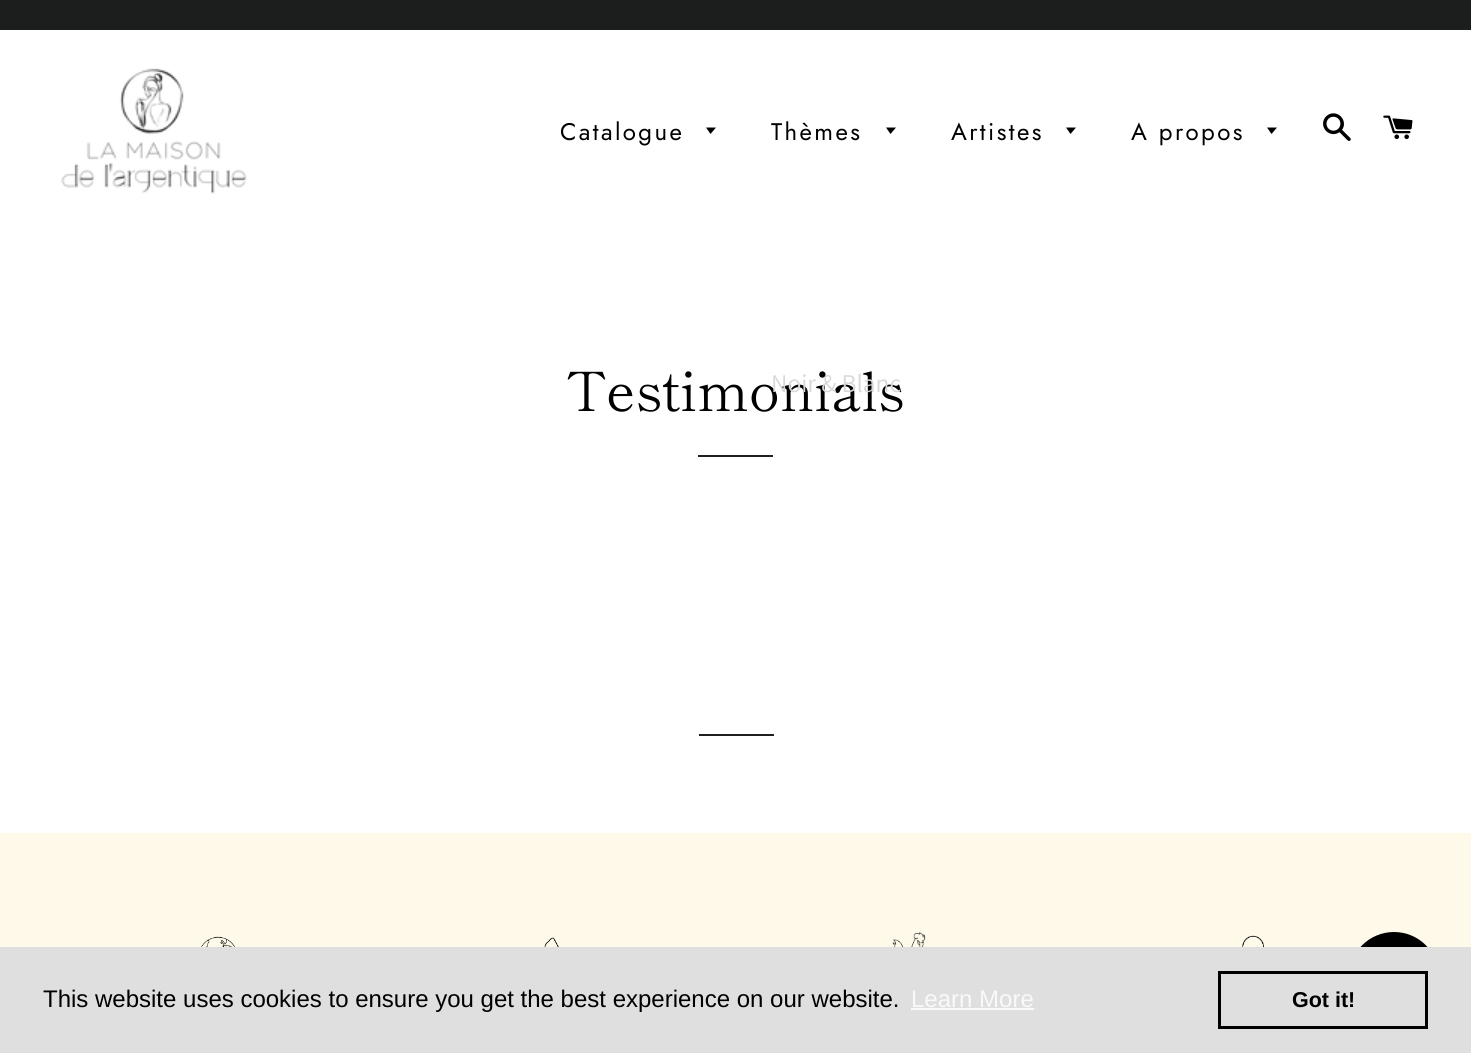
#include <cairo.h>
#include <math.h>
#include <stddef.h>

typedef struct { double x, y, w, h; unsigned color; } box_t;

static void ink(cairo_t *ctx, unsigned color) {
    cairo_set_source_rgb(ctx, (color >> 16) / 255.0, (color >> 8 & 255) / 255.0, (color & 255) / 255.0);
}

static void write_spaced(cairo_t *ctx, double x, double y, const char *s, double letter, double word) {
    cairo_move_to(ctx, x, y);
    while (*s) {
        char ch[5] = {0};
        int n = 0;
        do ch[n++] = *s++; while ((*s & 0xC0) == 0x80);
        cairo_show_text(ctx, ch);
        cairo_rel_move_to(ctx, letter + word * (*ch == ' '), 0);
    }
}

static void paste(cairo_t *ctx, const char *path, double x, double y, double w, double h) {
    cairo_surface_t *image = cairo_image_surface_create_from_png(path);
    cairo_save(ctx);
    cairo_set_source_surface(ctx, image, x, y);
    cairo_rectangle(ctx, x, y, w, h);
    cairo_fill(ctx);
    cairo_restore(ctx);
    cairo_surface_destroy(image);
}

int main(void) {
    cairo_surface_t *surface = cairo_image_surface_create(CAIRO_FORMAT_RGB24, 1471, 1053);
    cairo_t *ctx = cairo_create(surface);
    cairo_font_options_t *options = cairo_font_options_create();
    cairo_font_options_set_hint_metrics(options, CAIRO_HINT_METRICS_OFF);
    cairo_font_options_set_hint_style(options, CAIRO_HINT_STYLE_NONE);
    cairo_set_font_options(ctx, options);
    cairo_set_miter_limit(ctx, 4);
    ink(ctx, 0xFFFFFF);
    cairo_paint(ctx);
    ink(ctx, 0x1C1D1D);
    cairo_rectangle(ctx, 0, 0, 1471, 30);
    cairo_fill(ctx);
    paste(ctx, "media/1.png", 61, 68, 186, 126);
    cairo_select_font_face(ctx, "Jost", CAIRO_FONT_SLANT_NORMAL, CAIRO_FONT_WEIGHT_NORMAL);
    cairo_set_font_size(ctx, 24);
    ink(ctx, 0x000000);
    write_spaced(ctx, 560, 140, "Catalogue", 2.4, 0);
    cairo_new_path(ctx);
    cairo_move_to(ctx, 706, 127.5);
    cairo_line_to(ctx, 710.5, 134);
    cairo_line_to(ctx, 716, 127.5);
    cairo_close_path(ctx);
    cairo_fill(ctx);
    write_spaced(ctx, 771, 140, "Thèmes", 2.4, 0);
    cairo_new_path(ctx);
    cairo_move_to(ctx, 886, 127.5);
    cairo_line_to(ctx, 890.5, 134);
    cairo_line_to(ctx, 896, 127.5);
    cairo_close_path(ctx);
    cairo_fill(ctx);
    cairo_select_font_face(ctx, "Shippori Mincho", CAIRO_FONT_SLANT_NORMAL, CAIRO_FONT_WEIGHT_NORMAL);
    cairo_set_font_size(ctx, 54);
    cairo_move_to(ctx, 566, 411);
    cairo_show_text(ctx, "Testimonials");
    cairo_select_font_face(ctx, "Assistant", CAIRO_FONT_SLANT_NORMAL, CAIRO_FONT_WEIGHT_NORMAL);
    cairo_set_font_size(ctx, 25.5);
    ink(ctx, 0xD8D8D8);
    cairo_move_to(ctx, 771, 392);
    cairo_show_text(ctx, "Noir & Blanc");
    cairo_select_font_face(ctx, "Jost", CAIRO_FONT_SLANT_NORMAL, CAIRO_FONT_WEIGHT_NORMAL);
    cairo_set_font_size(ctx, 24);
    ink(ctx, 0x000000);
    write_spaced(ctx, 951, 140, "Artistes", 2.4, 0);
    cairo_new_path(ctx);
    cairo_move_to(ctx, 1066, 127.5);
    cairo_line_to(ctx, 1070.5, 134);
    cairo_line_to(ctx, 1076, 127.5);
    cairo_close_path(ctx);
    cairo_fill(ctx);
    write_spaced(ctx, 1131, 140, "A propos", 2.4, 0);
    cairo_new_path(ctx);
    cairo_move_to(ctx, 1267, 127.5);
    cairo_line_to(ctx, 1271.5, 134);
    cairo_line_to(ctx, 1277, 127.5);
    cairo_close_path(ctx);
    cairo_fill(ctx);
    paste(ctx, "media/2.png", 1323, 113, 28, 28);
    paste(ctx, "media/3.png", 1383, 115, 30, 25);
    {
        static const box_t items[] = {
            {698, 455, 75, 2, 0x1F2021},
            {699, 734, 75, 2, 0x1F2021},
            {0, 833, 1471, 114, 0xFFF9EA},
        };
        for (size_t i = 0; i < sizeof items / sizeof *items; i++) {
            ink(ctx, items[i].color);
            cairo_rectangle(ctx, items[i].x, items[i].y, items[i].w, items[i].h);
            cairo_fill(ctx);
        }
    }
    paste(ctx, "media/4.png", 201, 936, 34, 11);
    paste(ctx, "media/5.png", 544, 937, 15, 10);
    paste(ctx, "media/6.png", 892, 932, 34, 15);
    paste(ctx, "media/7.png", 1242, 935, 22, 12);
    ink(ctx, 0x000000);
    cairo_arc(ctx, 1394, 977, 45, 0, 2 * M_PI);
    cairo_fill(ctx);
    ink(ctx, 0xDFDFDF);
    cairo_rectangle(ctx, 0, 947, 1471, 106);
    cairo_fill(ctx);
    cairo_select_font_face(ctx, "Liberation Sans", CAIRO_FONT_SLANT_NORMAL, CAIRO_FONT_WEIGHT_NORMAL);
    ink(ctx, 0x000000);
    cairo_move_to(ctx, 43, 1007);
    cairo_show_text(ctx, "This website uses cookies to ensure you get the best experience on our website.");
    ink(ctx, 0xF9F9F9);
    cairo_move_to(ctx, 911, 1007);
    cairo_show_text(ctx, "Learn More");
    cairo_rectangle(ctx, 911, 1008, 123, 2);
    cairo_fill(ctx);
    cairo_rectangle(ctx, 1219.5, 972.5, 207, 55);
    ink(ctx, 0x000000);
    cairo_set_line_width(ctx, 3);
    cairo_stroke(ctx);
    cairo_select_font_face(ctx, "Liberation Sans", CAIRO_FONT_SLANT_NORMAL, CAIRO_FONT_WEIGHT_BOLD);
    cairo_set_font_size(ctx, 21.5);
    cairo_move_to(ctx, 1292, 1007);
    cairo_show_text(ctx, "Got it!");
    cairo_surface_write_to_png(surface, "image.png");
    cairo_font_options_destroy(options);
    cairo_destroy(ctx);
    cairo_surface_destroy(surface);
    return 0;
}
